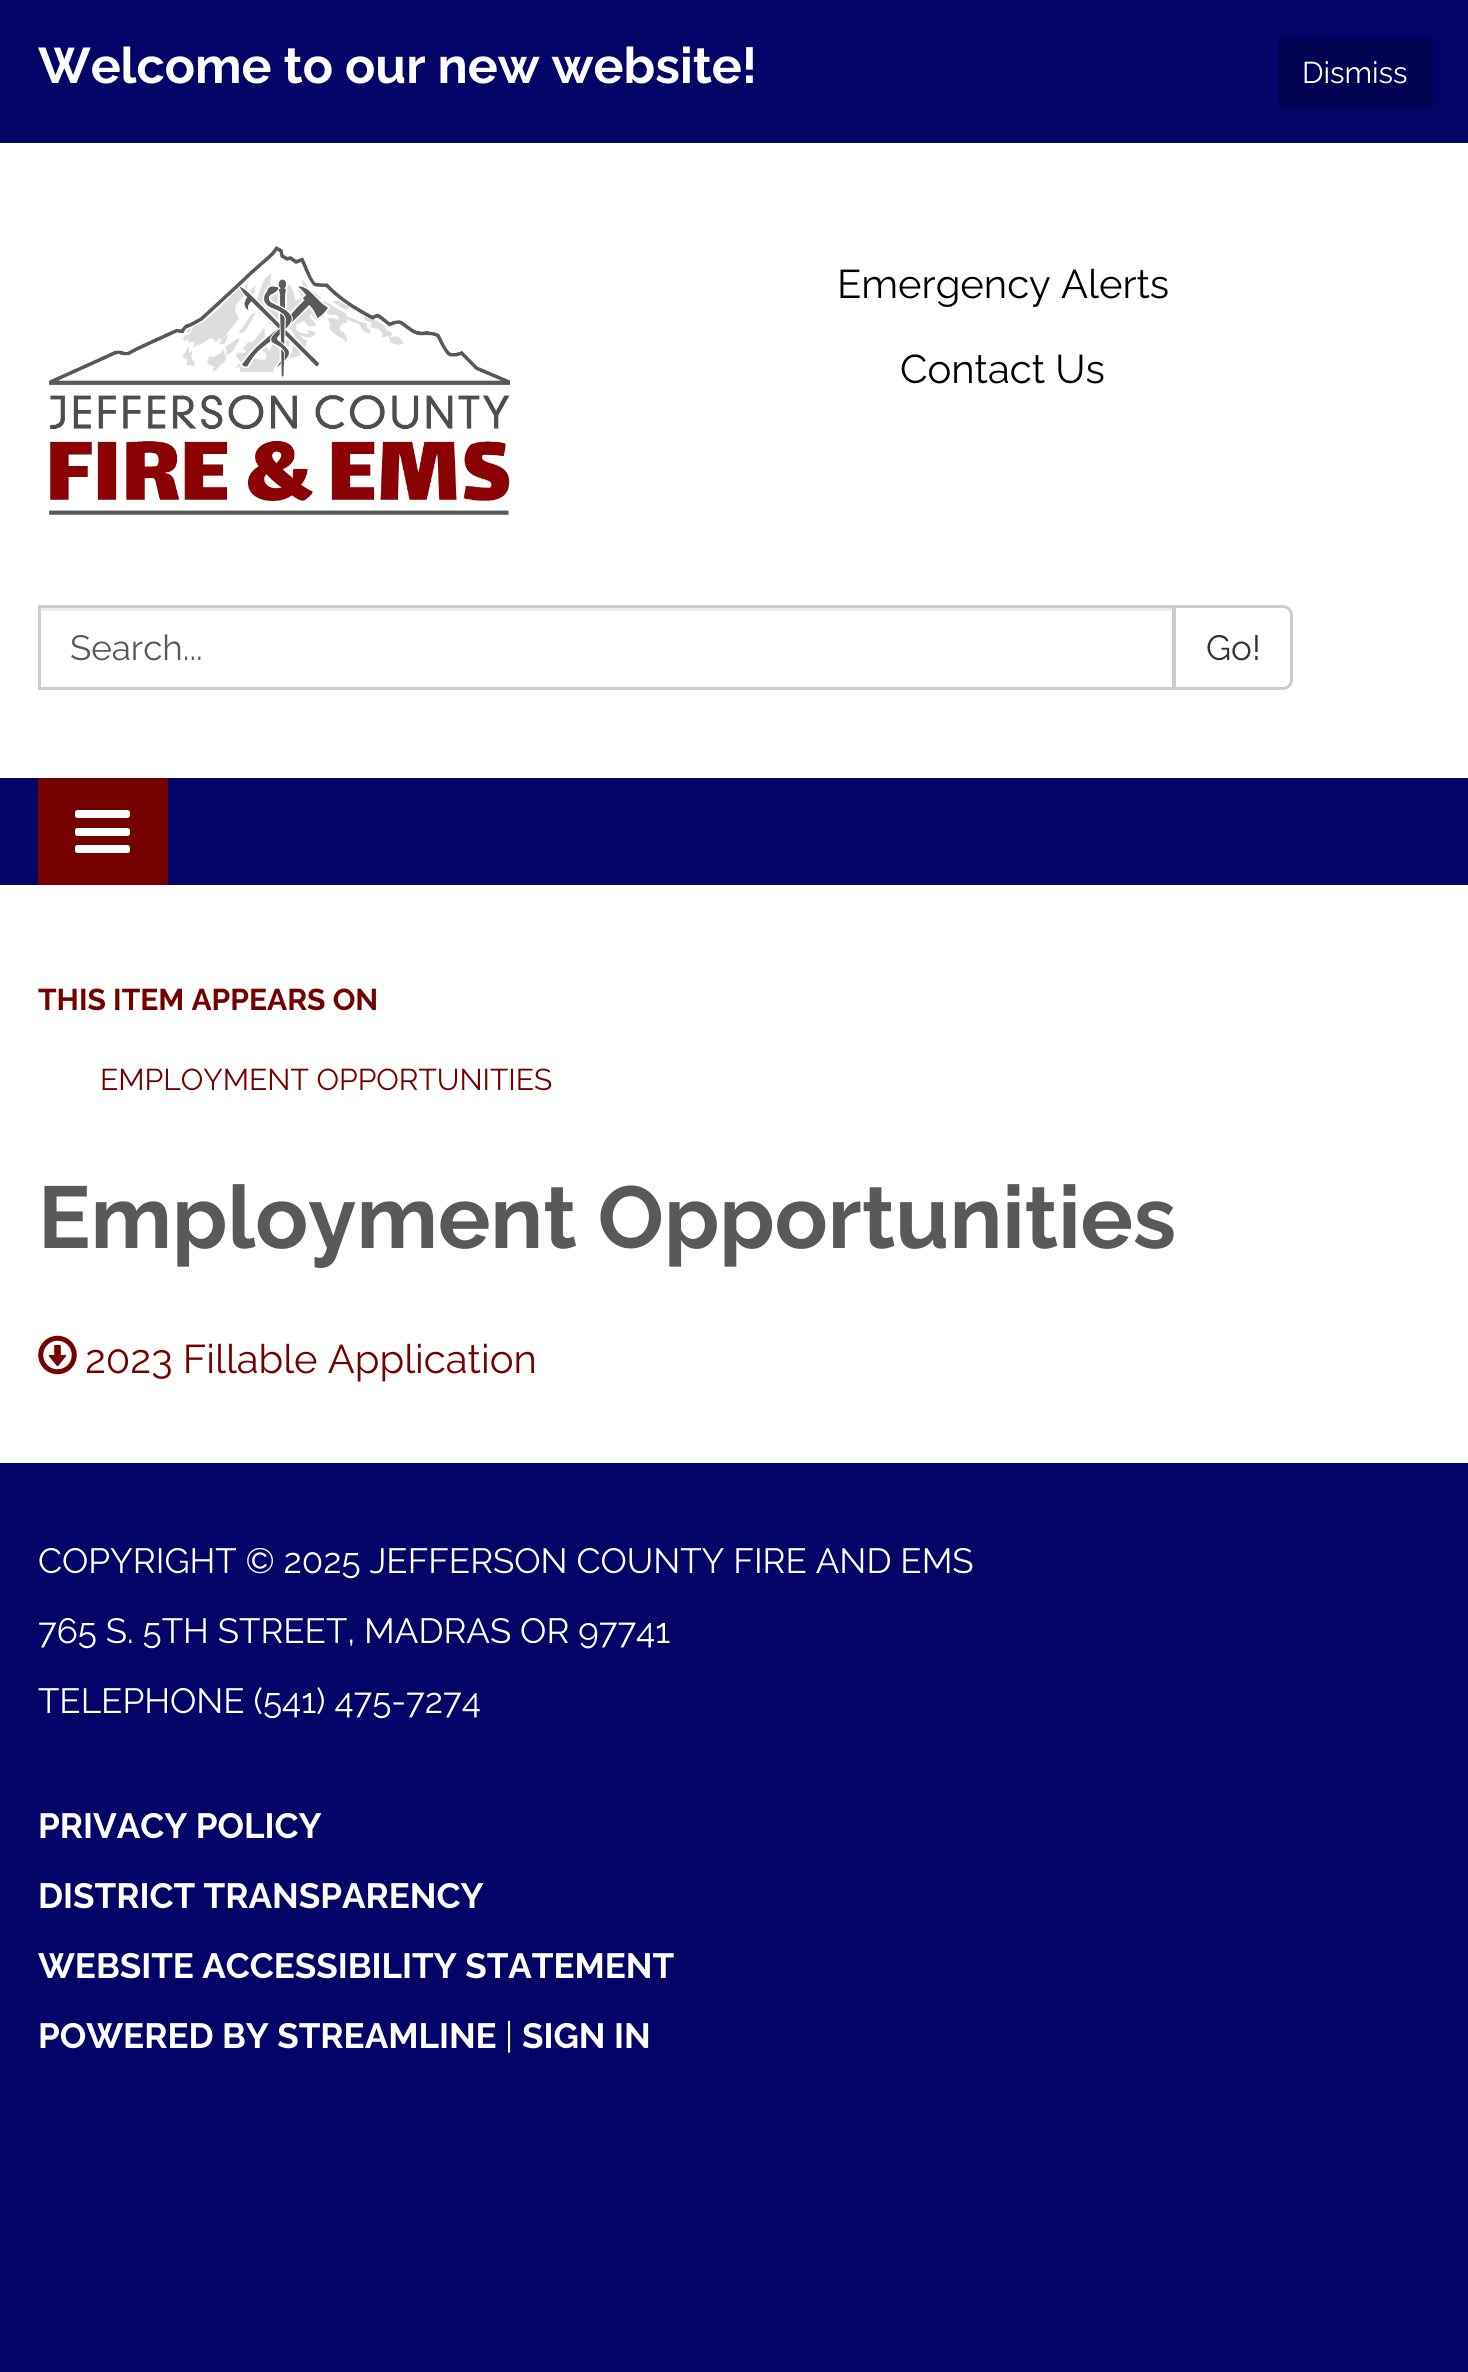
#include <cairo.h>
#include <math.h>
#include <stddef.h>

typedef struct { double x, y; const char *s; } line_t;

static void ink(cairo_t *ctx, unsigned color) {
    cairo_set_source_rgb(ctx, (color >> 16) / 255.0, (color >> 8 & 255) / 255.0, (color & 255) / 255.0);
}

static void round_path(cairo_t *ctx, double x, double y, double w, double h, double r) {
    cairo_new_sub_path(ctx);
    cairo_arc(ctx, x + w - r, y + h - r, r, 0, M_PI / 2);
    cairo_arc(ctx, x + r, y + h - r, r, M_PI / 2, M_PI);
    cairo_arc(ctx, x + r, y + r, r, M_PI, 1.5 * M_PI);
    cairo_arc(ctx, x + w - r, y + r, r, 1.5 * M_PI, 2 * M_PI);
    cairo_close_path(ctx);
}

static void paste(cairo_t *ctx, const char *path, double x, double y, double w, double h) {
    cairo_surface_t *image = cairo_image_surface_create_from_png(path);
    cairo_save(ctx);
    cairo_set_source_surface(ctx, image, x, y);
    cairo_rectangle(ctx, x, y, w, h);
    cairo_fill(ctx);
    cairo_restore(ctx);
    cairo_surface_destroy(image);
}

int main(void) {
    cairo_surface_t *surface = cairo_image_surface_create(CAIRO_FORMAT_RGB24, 1468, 2372);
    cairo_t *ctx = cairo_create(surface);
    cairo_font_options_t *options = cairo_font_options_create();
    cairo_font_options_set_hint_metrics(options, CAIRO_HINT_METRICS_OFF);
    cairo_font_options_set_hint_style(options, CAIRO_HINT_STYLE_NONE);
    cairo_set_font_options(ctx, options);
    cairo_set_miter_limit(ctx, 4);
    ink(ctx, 0x030368);
    cairo_paint(ctx);
    cairo_select_font_face(ctx, "Raleway", CAIRO_FONT_SLANT_NORMAL, CAIRO_FONT_WEIGHT_BOLD);
    cairo_set_font_size(ctx, 50);
    ink(ctx, 0xFFFFFF);
    cairo_move_to(ctx, 38, 83);
    cairo_show_text(ctx, "Welcome to our new website!");
    ink(ctx, 0x020253);
    cairo_rectangle(ctx, 1278, 38, 155, 70);
    cairo_fill(ctx);
    cairo_select_font_face(ctx, "Raleway", CAIRO_FONT_SLANT_NORMAL, CAIRO_FONT_WEIGHT_NORMAL);
    cairo_set_font_size(ctx, 30);
    ink(ctx, 0xFFFFFF);
    cairo_move_to(ctx, 1302, 83);
    cairo_show_text(ctx, "Dismiss");
    cairo_rectangle(ctx, 0, 143, 1468, 635);
    cairo_fill(ctx);
    paste(ctx, "media/1.png", 49, 246, 461, 269);
    cairo_set_font_size(ctx, 40);
    ink(ctx, 0x000000);
    cairo_move_to(ctx, 837, 298);
    cairo_show_text(ctx, "Emergency Alerts");
    cairo_move_to(ctx, 900, 383);
    cairo_show_text(ctx, "Contact Us");
    ink(ctx, 0xECECEC);
    cairo_rectangle(ctx, 40, 608, 1133, 3);
    cairo_fill(ctx);
    cairo_rectangle(ctx, 39.5, 606.5, 1134, 82);
    ink(ctx, 0xCCCCCC);
    cairo_set_line_width(ctx, 3);
    cairo_stroke(ctx);
    cairo_set_font_size(ctx, 35);
    ink(ctx, 0x58595B);
    cairo_move_to(ctx, 70, 660);
    cairo_show_text(ctx, "Search...");
    ink(ctx, 0xFFFFFF);
    cairo_new_path(ctx);
    cairo_move_to(ctx, 1174.5, 606.5);
    cairo_line_to(ctx, 1283, 606.5);
    cairo_curve_to(ctx, 1287.5, 606.5, 1291.5, 610.5, 1291.5, 615);
    cairo_line_to(ctx, 1291.5, 680);
    cairo_curve_to(ctx, 1291.5, 684.5, 1287.5, 688.5, 1283, 688.5);
    cairo_line_to(ctx, 1174.5, 688.5);
    cairo_close_path(ctx);
    cairo_fill_preserve(ctx);
    ink(ctx, 0xCCCCCC);
    cairo_stroke(ctx);
    ink(ctx, 0x333333);
    cairo_move_to(ctx, 1206, 660);
    cairo_show_text(ctx, "Go!");
    ink(ctx, 0x750000);
    cairo_rectangle(ctx, 38, 778, 130, 107);
    cairo_fill(ctx);
    ink(ctx, 0xFFFFFF);
    round_path(ctx, 75, 810, 55, 8, 2.5);
    cairo_fill(ctx);
    round_path(ctx, 75, 828, 55, 8, 2.5);
    cairo_fill(ctx);
    round_path(ctx, 75, 845, 55, 8, 2.5);
    cairo_fill(ctx);
    cairo_rectangle(ctx, 0, 885, 1468, 578);
    cairo_fill(ctx);
    cairo_select_font_face(ctx, "Raleway", CAIRO_FONT_SLANT_NORMAL, CAIRO_FONT_WEIGHT_BOLD);
    cairo_set_font_size(ctx, 30);
    ink(ctx, 0x750000);
    cairo_move_to(ctx, 38, 1010);
    cairo_show_text(ctx, "THIS ITEM APPEARS ON");
    cairo_select_font_face(ctx, "Raleway", CAIRO_FONT_SLANT_NORMAL, CAIRO_FONT_WEIGHT_NORMAL);
    cairo_move_to(ctx, 100, 1090);
    cairo_show_text(ctx, "EMPLOYMENT OPPORTUNITIES");
    cairo_select_font_face(ctx, "Raleway", CAIRO_FONT_SLANT_NORMAL, CAIRO_FONT_WEIGHT_BOLD);
    cairo_set_font_size(ctx, 87.5);
    ink(ctx, 0x58595B);
    cairo_move_to(ctx, 38, 1248);
    cairo_show_text(ctx, "Employment Opportunities");
    paste(ctx, "media/2.png", 38, 1335, 39, 40);
    cairo_select_font_face(ctx, "Raleway", CAIRO_FONT_SLANT_NORMAL, CAIRO_FONT_WEIGHT_NORMAL);
    cairo_set_font_size(ctx, 40);
    ink(ctx, 0x750000);
    cairo_move_to(ctx, 85, 1373);
    cairo_show_text(ctx, "2023 Fillable Application");
    cairo_set_font_size(ctx, 35);
    ink(ctx, 0xFFFFFF);
    {
        static const line_t items[] = {
            {38, 1573, "COPYRIGHT © 2025 JEFFERSON COUNTY FIRE AND EMS"},
            {38, 1643, "765 S. 5TH STREET, MADRAS OR 97741"},
            {38, 1713, "TELEPHONE (541) 475-7274"},
        };
        for (size_t i = 0; i < sizeof items / sizeof *items; i++) {
            cairo_move_to(ctx, items[i].x, items[i].y);
            cairo_show_text(ctx, items[i].s);
        }
    }
    cairo_select_font_face(ctx, "Raleway", CAIRO_FONT_SLANT_NORMAL, CAIRO_FONT_WEIGHT_BOLD);
    {
        static const line_t items[] = {
            {38, 1838, "PRIVACY POLICY"},
            {38, 1908, "DISTRICT TRANSPARENCY"},
            {38, 1978, "WEBSITE ACCESSIBILITY STATEMENT"},
            {38, 2048, "POWERED BY STREAMLINE"},
        };
        for (size_t i = 0; i < sizeof items / sizeof *items; i++) {
            cairo_move_to(ctx, items[i].x, items[i].y);
            cairo_show_text(ctx, items[i].s);
        }
    }
    cairo_select_font_face(ctx, "Raleway", CAIRO_FONT_SLANT_NORMAL, CAIRO_FONT_WEIGHT_NORMAL);
    cairo_move_to(ctx, 505, 2048);
    cairo_show_text(ctx, "|");
    cairo_select_font_face(ctx, "Raleway", CAIRO_FONT_SLANT_NORMAL, CAIRO_FONT_WEIGHT_BOLD);
    cairo_move_to(ctx, 522, 2048);
    cairo_show_text(ctx, "SIGN IN");
    cairo_surface_write_to_png(surface, "image.png");
    cairo_font_options_destroy(options);
    cairo_destroy(ctx);
    cairo_surface_destroy(surface);
    return 0;
}
